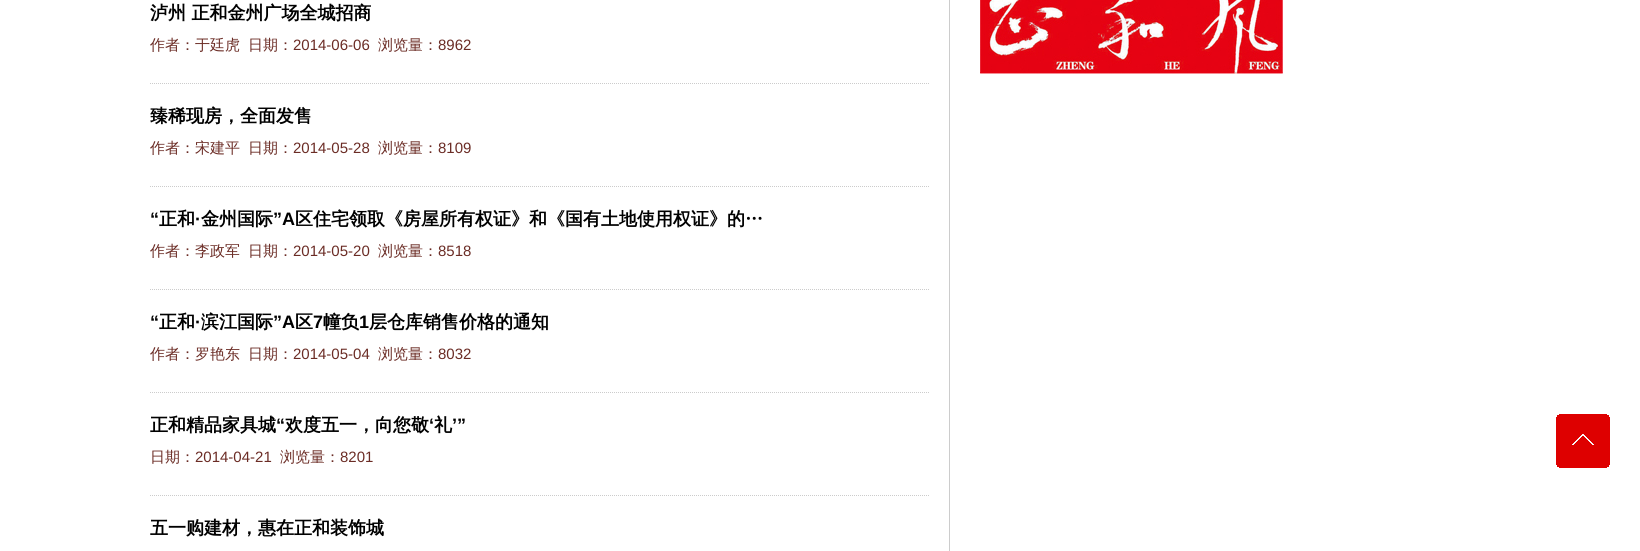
#include <cairo.h>
#include <math.h>
#include <stddef.h>


static void ink(cairo_t *ctx, unsigned color) {
    cairo_set_source_rgb(ctx, (color >> 16) / 255.0, (color >> 8 & 255) / 255.0, (color & 255) / 255.0);
}

static void paste(cairo_t *ctx, const char *path, double x, double y, double w, double h) {
    cairo_surface_t *image = cairo_image_surface_create_from_png(path);
    cairo_save(ctx);
    cairo_set_source_surface(ctx, image, x, y);
    cairo_rectangle(ctx, x, y, w, h);
    cairo_fill(ctx);
    cairo_restore(ctx);
    cairo_surface_destroy(image);
}

int main(void) {
    cairo_surface_t *surface = cairo_image_surface_create(CAIRO_FORMAT_RGB24, 1640, 551);
    cairo_t *ctx = cairo_create(surface);
    cairo_font_options_t *options = cairo_font_options_create();
    cairo_font_options_set_hint_metrics(options, CAIRO_HINT_METRICS_OFF);
    cairo_font_options_set_hint_style(options, CAIRO_HINT_STYLE_NONE);
    cairo_set_font_options(ctx, options);
    cairo_set_miter_limit(ctx, 4);
    ink(ctx, 0xFFFFFF);
    cairo_paint(ctx);
    ink(ctx, 0xCCCCCC);
    cairo_rectangle(ctx, 949, 0, 1, 551);
    cairo_fill(ctx);
    cairo_new_path(ctx);
    cairo_move_to(ctx, 150, 83.5);
    cairo_line_to(ctx, 929, 83.5);
    cairo_set_line_width(ctx, 1);
    cairo_set_dash(ctx, (double[]){1, 1}, 2, 0);
    cairo_stroke(ctx);
    cairo_select_font_face(ctx, "WenQuanYi Zen Hei", CAIRO_FONT_SLANT_NORMAL, CAIRO_FONT_WEIGHT_BOLD);
    cairo_set_font_size(ctx, 18);
    ink(ctx, 0x000000);
    cairo_move_to(ctx, 150, 19);
    cairo_show_text(ctx, "泸州 正和金州广场全城招商");
    cairo_select_font_face(ctx, "WenQuanYi Zen Hei Medium", CAIRO_FONT_SLANT_NORMAL, CAIRO_FONT_WEIGHT_NORMAL);
    cairo_set_font_size(ctx, 15);
    ink(ctx, 0x6B2C25);
    cairo_move_to(ctx, 150, 50);
    cairo_show_text(ctx, "作者：于廷虎");
    cairo_move_to(ctx, 248, 50);
    cairo_show_text(ctx, "日期：");
    cairo_select_font_face(ctx, "Liberation Sans", CAIRO_FONT_SLANT_NORMAL, CAIRO_FONT_WEIGHT_NORMAL);
    cairo_move_to(ctx, 293, 50);
    cairo_show_text(ctx, "2014-06-06");
    cairo_select_font_face(ctx, "WenQuanYi Zen Hei Medium", CAIRO_FONT_SLANT_NORMAL, CAIRO_FONT_WEIGHT_NORMAL);
    cairo_move_to(ctx, 378, 50);
    cairo_show_text(ctx, "浏览量：");
    cairo_select_font_face(ctx, "Liberation Sans", CAIRO_FONT_SLANT_NORMAL, CAIRO_FONT_WEIGHT_NORMAL);
    cairo_move_to(ctx, 438, 50);
    cairo_show_text(ctx, "8962");
    cairo_new_path(ctx);
    cairo_move_to(ctx, 150, 186.5);
    cairo_line_to(ctx, 929, 186.5);
    ink(ctx, 0xCCCCCC);
    cairo_stroke(ctx);
    cairo_select_font_face(ctx, "WenQuanYi Zen Hei", CAIRO_FONT_SLANT_NORMAL, CAIRO_FONT_WEIGHT_BOLD);
    cairo_set_font_size(ctx, 18);
    ink(ctx, 0x000000);
    cairo_move_to(ctx, 150, 122);
    cairo_show_text(ctx, "臻稀现房，全面发售");
    cairo_select_font_face(ctx, "WenQuanYi Zen Hei Medium", CAIRO_FONT_SLANT_NORMAL, CAIRO_FONT_WEIGHT_NORMAL);
    cairo_set_font_size(ctx, 15);
    ink(ctx, 0x6B2C25);
    cairo_move_to(ctx, 150, 153);
    cairo_show_text(ctx, "作者：宋建平");
    cairo_move_to(ctx, 248, 153);
    cairo_show_text(ctx, "日期：");
    cairo_select_font_face(ctx, "Liberation Sans", CAIRO_FONT_SLANT_NORMAL, CAIRO_FONT_WEIGHT_NORMAL);
    cairo_move_to(ctx, 293, 153);
    cairo_show_text(ctx, "2014-05-28");
    cairo_select_font_face(ctx, "WenQuanYi Zen Hei Medium", CAIRO_FONT_SLANT_NORMAL, CAIRO_FONT_WEIGHT_NORMAL);
    cairo_move_to(ctx, 378, 153);
    cairo_show_text(ctx, "浏览量：");
    cairo_select_font_face(ctx, "Liberation Sans", CAIRO_FONT_SLANT_NORMAL, CAIRO_FONT_WEIGHT_NORMAL);
    cairo_move_to(ctx, 438, 153);
    cairo_show_text(ctx, "8109");
    cairo_new_path(ctx);
    cairo_move_to(ctx, 150, 289.5);
    cairo_line_to(ctx, 929, 289.5);
    ink(ctx, 0xCCCCCC);
    cairo_stroke(ctx);
    cairo_select_font_face(ctx, "Liberation Sans", CAIRO_FONT_SLANT_NORMAL, CAIRO_FONT_WEIGHT_BOLD);
    cairo_set_font_size(ctx, 18);
    ink(ctx, 0x000000);
    cairo_move_to(ctx, 150, 225);
    cairo_show_text(ctx, "“");
    cairo_select_font_face(ctx, "WenQuanYi Zen Hei", CAIRO_FONT_SLANT_NORMAL, CAIRO_FONT_WEIGHT_BOLD);
    cairo_move_to(ctx, 159, 225);
    cairo_show_text(ctx, "正和");
    cairo_select_font_face(ctx, "Liberation Sans", CAIRO_FONT_SLANT_NORMAL, CAIRO_FONT_WEIGHT_BOLD);
    cairo_move_to(ctx, 195, 225);
    cairo_show_text(ctx, "·");
    cairo_select_font_face(ctx, "WenQuanYi Zen Hei", CAIRO_FONT_SLANT_NORMAL, CAIRO_FONT_WEIGHT_BOLD);
    cairo_move_to(ctx, 201, 225);
    cairo_show_text(ctx, "金州国际");
    cairo_select_font_face(ctx, "Liberation Sans", CAIRO_FONT_SLANT_NORMAL, CAIRO_FONT_WEIGHT_BOLD);
    cairo_move_to(ctx, 273, 225);
    cairo_show_text(ctx, "”A");
    cairo_select_font_face(ctx, "WenQuanYi Zen Hei", CAIRO_FONT_SLANT_NORMAL, CAIRO_FONT_WEIGHT_BOLD);
    cairo_move_to(ctx, 295, 225);
    cairo_show_text(ctx, "区住宅领取《房屋所有权证》和《国有土地使用权证》的…");
    cairo_select_font_face(ctx, "WenQuanYi Zen Hei Medium", CAIRO_FONT_SLANT_NORMAL, CAIRO_FONT_WEIGHT_NORMAL);
    cairo_set_font_size(ctx, 15);
    ink(ctx, 0x6B2C25);
    cairo_move_to(ctx, 150, 256);
    cairo_show_text(ctx, "作者：李政军");
    cairo_move_to(ctx, 248, 256);
    cairo_show_text(ctx, "日期：");
    cairo_select_font_face(ctx, "Liberation Sans", CAIRO_FONT_SLANT_NORMAL, CAIRO_FONT_WEIGHT_NORMAL);
    cairo_move_to(ctx, 293, 256);
    cairo_show_text(ctx, "2014-05-20");
    cairo_select_font_face(ctx, "WenQuanYi Zen Hei Medium", CAIRO_FONT_SLANT_NORMAL, CAIRO_FONT_WEIGHT_NORMAL);
    cairo_move_to(ctx, 378, 256);
    cairo_show_text(ctx, "浏览量：");
    cairo_select_font_face(ctx, "Liberation Sans", CAIRO_FONT_SLANT_NORMAL, CAIRO_FONT_WEIGHT_NORMAL);
    cairo_move_to(ctx, 438, 256);
    cairo_show_text(ctx, "8518");
    cairo_new_path(ctx);
    cairo_move_to(ctx, 150, 392.5);
    cairo_line_to(ctx, 929, 392.5);
    ink(ctx, 0xCCCCCC);
    cairo_stroke(ctx);
    cairo_select_font_face(ctx, "Liberation Sans", CAIRO_FONT_SLANT_NORMAL, CAIRO_FONT_WEIGHT_BOLD);
    cairo_set_font_size(ctx, 18);
    ink(ctx, 0x000000);
    cairo_move_to(ctx, 150, 328);
    cairo_show_text(ctx, "“");
    cairo_select_font_face(ctx, "WenQuanYi Zen Hei", CAIRO_FONT_SLANT_NORMAL, CAIRO_FONT_WEIGHT_BOLD);
    cairo_move_to(ctx, 159, 328);
    cairo_show_text(ctx, "正和");
    cairo_select_font_face(ctx, "Liberation Sans", CAIRO_FONT_SLANT_NORMAL, CAIRO_FONT_WEIGHT_BOLD);
    cairo_move_to(ctx, 195, 328);
    cairo_show_text(ctx, "·");
    cairo_select_font_face(ctx, "WenQuanYi Zen Hei", CAIRO_FONT_SLANT_NORMAL, CAIRO_FONT_WEIGHT_BOLD);
    cairo_move_to(ctx, 201, 328);
    cairo_show_text(ctx, "滨江国际");
    cairo_select_font_face(ctx, "Liberation Sans", CAIRO_FONT_SLANT_NORMAL, CAIRO_FONT_WEIGHT_BOLD);
    cairo_move_to(ctx, 273, 328);
    cairo_show_text(ctx, "”A");
    cairo_select_font_face(ctx, "WenQuanYi Zen Hei", CAIRO_FONT_SLANT_NORMAL, CAIRO_FONT_WEIGHT_BOLD);
    cairo_move_to(ctx, 295, 328);
    cairo_show_text(ctx, "区");
    cairo_select_font_face(ctx, "Liberation Sans", CAIRO_FONT_SLANT_NORMAL, CAIRO_FONT_WEIGHT_BOLD);
    cairo_move_to(ctx, 313, 328);
    cairo_show_text(ctx, "7");
    cairo_select_font_face(ctx, "WenQuanYi Zen Hei", CAIRO_FONT_SLANT_NORMAL, CAIRO_FONT_WEIGHT_BOLD);
    cairo_move_to(ctx, 323, 328);
    cairo_show_text(ctx, "幢负");
    cairo_select_font_face(ctx, "Liberation Sans", CAIRO_FONT_SLANT_NORMAL, CAIRO_FONT_WEIGHT_BOLD);
    cairo_move_to(ctx, 359, 328);
    cairo_show_text(ctx, "1");
    cairo_select_font_face(ctx, "WenQuanYi Zen Hei", CAIRO_FONT_SLANT_NORMAL, CAIRO_FONT_WEIGHT_BOLD);
    cairo_move_to(ctx, 369, 328);
    cairo_show_text(ctx, "层仓库销售价格的通知");
    cairo_select_font_face(ctx, "WenQuanYi Zen Hei Medium", CAIRO_FONT_SLANT_NORMAL, CAIRO_FONT_WEIGHT_NORMAL);
    cairo_set_font_size(ctx, 15);
    ink(ctx, 0x6B2C25);
    cairo_move_to(ctx, 150, 359);
    cairo_show_text(ctx, "作者：罗艳东");
    cairo_move_to(ctx, 248, 359);
    cairo_show_text(ctx, "日期：");
    cairo_select_font_face(ctx, "Liberation Sans", CAIRO_FONT_SLANT_NORMAL, CAIRO_FONT_WEIGHT_NORMAL);
    cairo_move_to(ctx, 293, 359);
    cairo_show_text(ctx, "2014-05-04");
    cairo_select_font_face(ctx, "WenQuanYi Zen Hei Medium", CAIRO_FONT_SLANT_NORMAL, CAIRO_FONT_WEIGHT_NORMAL);
    cairo_move_to(ctx, 378, 359);
    cairo_show_text(ctx, "浏览量：");
    cairo_select_font_face(ctx, "Liberation Sans", CAIRO_FONT_SLANT_NORMAL, CAIRO_FONT_WEIGHT_NORMAL);
    cairo_move_to(ctx, 438, 359);
    cairo_show_text(ctx, "8032");
    cairo_new_path(ctx);
    cairo_move_to(ctx, 150, 495.5);
    cairo_line_to(ctx, 929, 495.5);
    ink(ctx, 0xCCCCCC);
    cairo_stroke(ctx);
    cairo_select_font_face(ctx, "WenQuanYi Zen Hei", CAIRO_FONT_SLANT_NORMAL, CAIRO_FONT_WEIGHT_BOLD);
    cairo_set_font_size(ctx, 18);
    ink(ctx, 0x000000);
    cairo_move_to(ctx, 150, 431);
    cairo_show_text(ctx, "正和精品家具城");
    cairo_select_font_face(ctx, "Liberation Sans", CAIRO_FONT_SLANT_NORMAL, CAIRO_FONT_WEIGHT_BOLD);
    cairo_move_to(ctx, 276, 431);
    cairo_show_text(ctx, "“");
    cairo_select_font_face(ctx, "WenQuanYi Zen Hei", CAIRO_FONT_SLANT_NORMAL, CAIRO_FONT_WEIGHT_BOLD);
    cairo_move_to(ctx, 285, 431);
    cairo_show_text(ctx, "欢度五一，向您敬");
    cairo_select_font_face(ctx, "Liberation Sans", CAIRO_FONT_SLANT_NORMAL, CAIRO_FONT_WEIGHT_BOLD);
    cairo_move_to(ctx, 429, 431);
    cairo_show_text(ctx, "‘");
    cairo_select_font_face(ctx, "WenQuanYi Zen Hei", CAIRO_FONT_SLANT_NORMAL, CAIRO_FONT_WEIGHT_BOLD);
    cairo_move_to(ctx, 434, 431);
    cairo_show_text(ctx, "礼");
    cairo_select_font_face(ctx, "Liberation Sans", CAIRO_FONT_SLANT_NORMAL, CAIRO_FONT_WEIGHT_BOLD);
    cairo_move_to(ctx, 452, 431);
    cairo_show_text(ctx, "’”");
    cairo_select_font_face(ctx, "WenQuanYi Zen Hei Medium", CAIRO_FONT_SLANT_NORMAL, CAIRO_FONT_WEIGHT_NORMAL);
    cairo_set_font_size(ctx, 15);
    ink(ctx, 0x6B2C25);
    cairo_move_to(ctx, 150, 462);
    cairo_show_text(ctx, "日期：");
    cairo_select_font_face(ctx, "Liberation Sans", CAIRO_FONT_SLANT_NORMAL, CAIRO_FONT_WEIGHT_NORMAL);
    cairo_move_to(ctx, 195, 462);
    cairo_show_text(ctx, "2014-04-21");
    cairo_select_font_face(ctx, "WenQuanYi Zen Hei Medium", CAIRO_FONT_SLANT_NORMAL, CAIRO_FONT_WEIGHT_NORMAL);
    cairo_move_to(ctx, 280, 462);
    cairo_show_text(ctx, "浏览量：");
    cairo_select_font_face(ctx, "Liberation Sans", CAIRO_FONT_SLANT_NORMAL, CAIRO_FONT_WEIGHT_NORMAL);
    cairo_move_to(ctx, 340, 462);
    cairo_show_text(ctx, "8201");
    cairo_select_font_face(ctx, "WenQuanYi Zen Hei", CAIRO_FONT_SLANT_NORMAL, CAIRO_FONT_WEIGHT_BOLD);
    cairo_set_font_size(ctx, 18);
    ink(ctx, 0x000000);
    cairo_move_to(ctx, 150, 534);
    cairo_show_text(ctx, "五一购建材，惠在正和装饰城");
    paste(ctx, "media/1.png", 980, 0, 303, 74);
    paste(ctx, "media/2.png", 1556, 414, 54, 54);
    cairo_surface_write_to_png(surface, "image.png");
    cairo_font_options_destroy(options);
    cairo_destroy(ctx);
    cairo_surface_destroy(surface);
    return 0;
}
